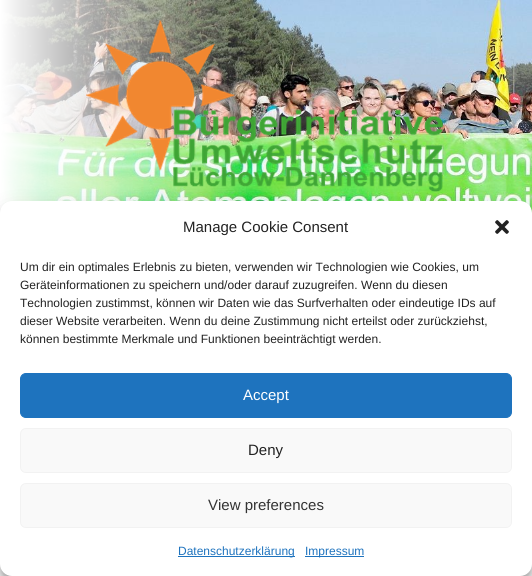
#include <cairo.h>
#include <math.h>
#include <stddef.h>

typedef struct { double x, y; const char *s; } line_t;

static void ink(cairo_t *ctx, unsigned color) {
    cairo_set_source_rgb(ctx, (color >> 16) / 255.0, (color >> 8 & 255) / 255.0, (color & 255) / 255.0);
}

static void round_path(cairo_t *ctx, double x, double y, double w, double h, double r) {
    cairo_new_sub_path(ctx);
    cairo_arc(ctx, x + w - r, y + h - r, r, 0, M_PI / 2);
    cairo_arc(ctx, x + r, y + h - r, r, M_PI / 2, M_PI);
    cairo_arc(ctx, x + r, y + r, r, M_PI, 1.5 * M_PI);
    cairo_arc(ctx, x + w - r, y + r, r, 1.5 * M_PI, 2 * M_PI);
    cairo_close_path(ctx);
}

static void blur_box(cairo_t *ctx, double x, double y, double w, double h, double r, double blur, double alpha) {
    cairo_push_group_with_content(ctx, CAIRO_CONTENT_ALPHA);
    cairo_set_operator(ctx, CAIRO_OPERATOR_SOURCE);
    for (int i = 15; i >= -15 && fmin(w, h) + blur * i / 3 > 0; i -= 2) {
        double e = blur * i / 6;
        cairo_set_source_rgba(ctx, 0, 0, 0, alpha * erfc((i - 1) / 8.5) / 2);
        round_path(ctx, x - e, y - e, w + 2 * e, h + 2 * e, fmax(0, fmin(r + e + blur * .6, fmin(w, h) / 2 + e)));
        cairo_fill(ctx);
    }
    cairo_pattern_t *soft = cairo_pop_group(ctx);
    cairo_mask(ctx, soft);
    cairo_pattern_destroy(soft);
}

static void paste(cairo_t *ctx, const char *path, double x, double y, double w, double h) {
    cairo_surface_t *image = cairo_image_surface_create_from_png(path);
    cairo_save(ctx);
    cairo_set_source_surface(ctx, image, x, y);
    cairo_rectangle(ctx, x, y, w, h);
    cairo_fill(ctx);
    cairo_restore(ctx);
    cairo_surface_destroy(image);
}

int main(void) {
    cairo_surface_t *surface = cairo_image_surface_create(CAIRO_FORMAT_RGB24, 532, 576);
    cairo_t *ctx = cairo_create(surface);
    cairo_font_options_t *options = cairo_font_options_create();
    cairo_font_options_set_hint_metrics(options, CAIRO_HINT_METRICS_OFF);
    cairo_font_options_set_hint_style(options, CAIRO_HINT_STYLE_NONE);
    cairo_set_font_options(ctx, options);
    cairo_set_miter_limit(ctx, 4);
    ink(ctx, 0xFFFFFF);
    cairo_paint(ctx);
    paste(ctx, "media/1.png", 0, 0, 532, 213);
    paste(ctx, "media/2.png", 86, 20, 357, 172);
    ink(ctx, 0x000000);
    blur_box(ctx, 0, 207, 532, 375, 12, 3, 0.23);
    blur_box(ctx, 0, 211, 532, 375, 12, 10, 0.19);
    ink(ctx, 0xFFFFFF);
    round_path(ctx, 0, 201, 532, 375, 12);
    cairo_fill(ctx);
    cairo_select_font_face(ctx, "Liberation Sans", CAIRO_FONT_SLANT_NORMAL, CAIRO_FONT_WEIGHT_NORMAL);
    cairo_set_font_size(ctx, 15);
    ink(ctx, 0x222222);
    cairo_move_to(ctx, 183, 232);
    cairo_show_text(ctx, "Manage Cookie Consent");
    paste(ctx, "media/3.png", 495, 220, 14, 14);
    cairo_set_font_size(ctx, 12);
    {
        static const line_t items[] = {
            {20, 271, "Um dir ein optimales Erlebnis zu bieten, verwenden wir Technologien wie Cookies, um"},
            {20, 289, "Geräteinformationen zu speichern und/oder darauf zuzugreifen. Wenn du diesen"},
            {20, 307, "Technologien zustimmst, können wir Daten wie das Surfverhalten oder eindeutige IDs auf"},
            {20, 325, "dieser Website verarbeiten. Wenn du deine Zustimmung nicht erteilst oder zurückziehst,"},
            {20, 343, "können bestimmte Merkmale und Funktionen beeinträchtigt werden."},
        };
        for (size_t i = 0; i < sizeof items / sizeof *items; i++) {
            cairo_move_to(ctx, items[i].x, items[i].y);
            cairo_show_text(ctx, items[i].s);
        }
    }
    ink(ctx, 0x1E73BE);
    round_path(ctx, 20.5, 373.5, 491, 44, 5.5);
    cairo_fill_preserve(ctx);
    cairo_set_line_width(ctx, 1);
    cairo_stroke(ctx);
    cairo_set_font_size(ctx, 15);
    ink(ctx, 0xFFFFFF);
    cairo_move_to(ctx, 243, 400);
    cairo_show_text(ctx, "Accept");
    ink(ctx, 0xF9F9F9);
    round_path(ctx, 20.5, 428.5, 491, 44, 5.5);
    cairo_fill_preserve(ctx);
    ink(ctx, 0xF2F2F2);
    cairo_stroke(ctx);
    ink(ctx, 0x222222);
    cairo_move_to(ctx, 248, 455);
    cairo_show_text(ctx, "Deny");
    ink(ctx, 0xF9F9F9);
    round_path(ctx, 20.5, 483.5, 491, 44, 5.5);
    cairo_fill_preserve(ctx);
    ink(ctx, 0xF2F2F2);
    cairo_stroke(ctx);
    ink(ctx, 0x333333);
    cairo_move_to(ctx, 208, 510);
    cairo_show_text(ctx, "View preferences");
    ink(ctx, 0x1E73BE);
    cairo_rectangle(ctx, 178, 556, 117, 1);
    cairo_fill(ctx);
    cairo_set_font_size(ctx, 12);
    cairo_move_to(ctx, 178, 555);
    cairo_show_text(ctx, "Datenschutzerklärung");
    cairo_rectangle(ctx, 305, 556, 59, 1);
    cairo_fill(ctx);
    cairo_move_to(ctx, 305, 555);
    cairo_show_text(ctx, "Impressum");
    cairo_surface_write_to_png(surface, "image.png");
    cairo_font_options_destroy(options);
    cairo_destroy(ctx);
    cairo_surface_destroy(surface);
    return 0;
}
